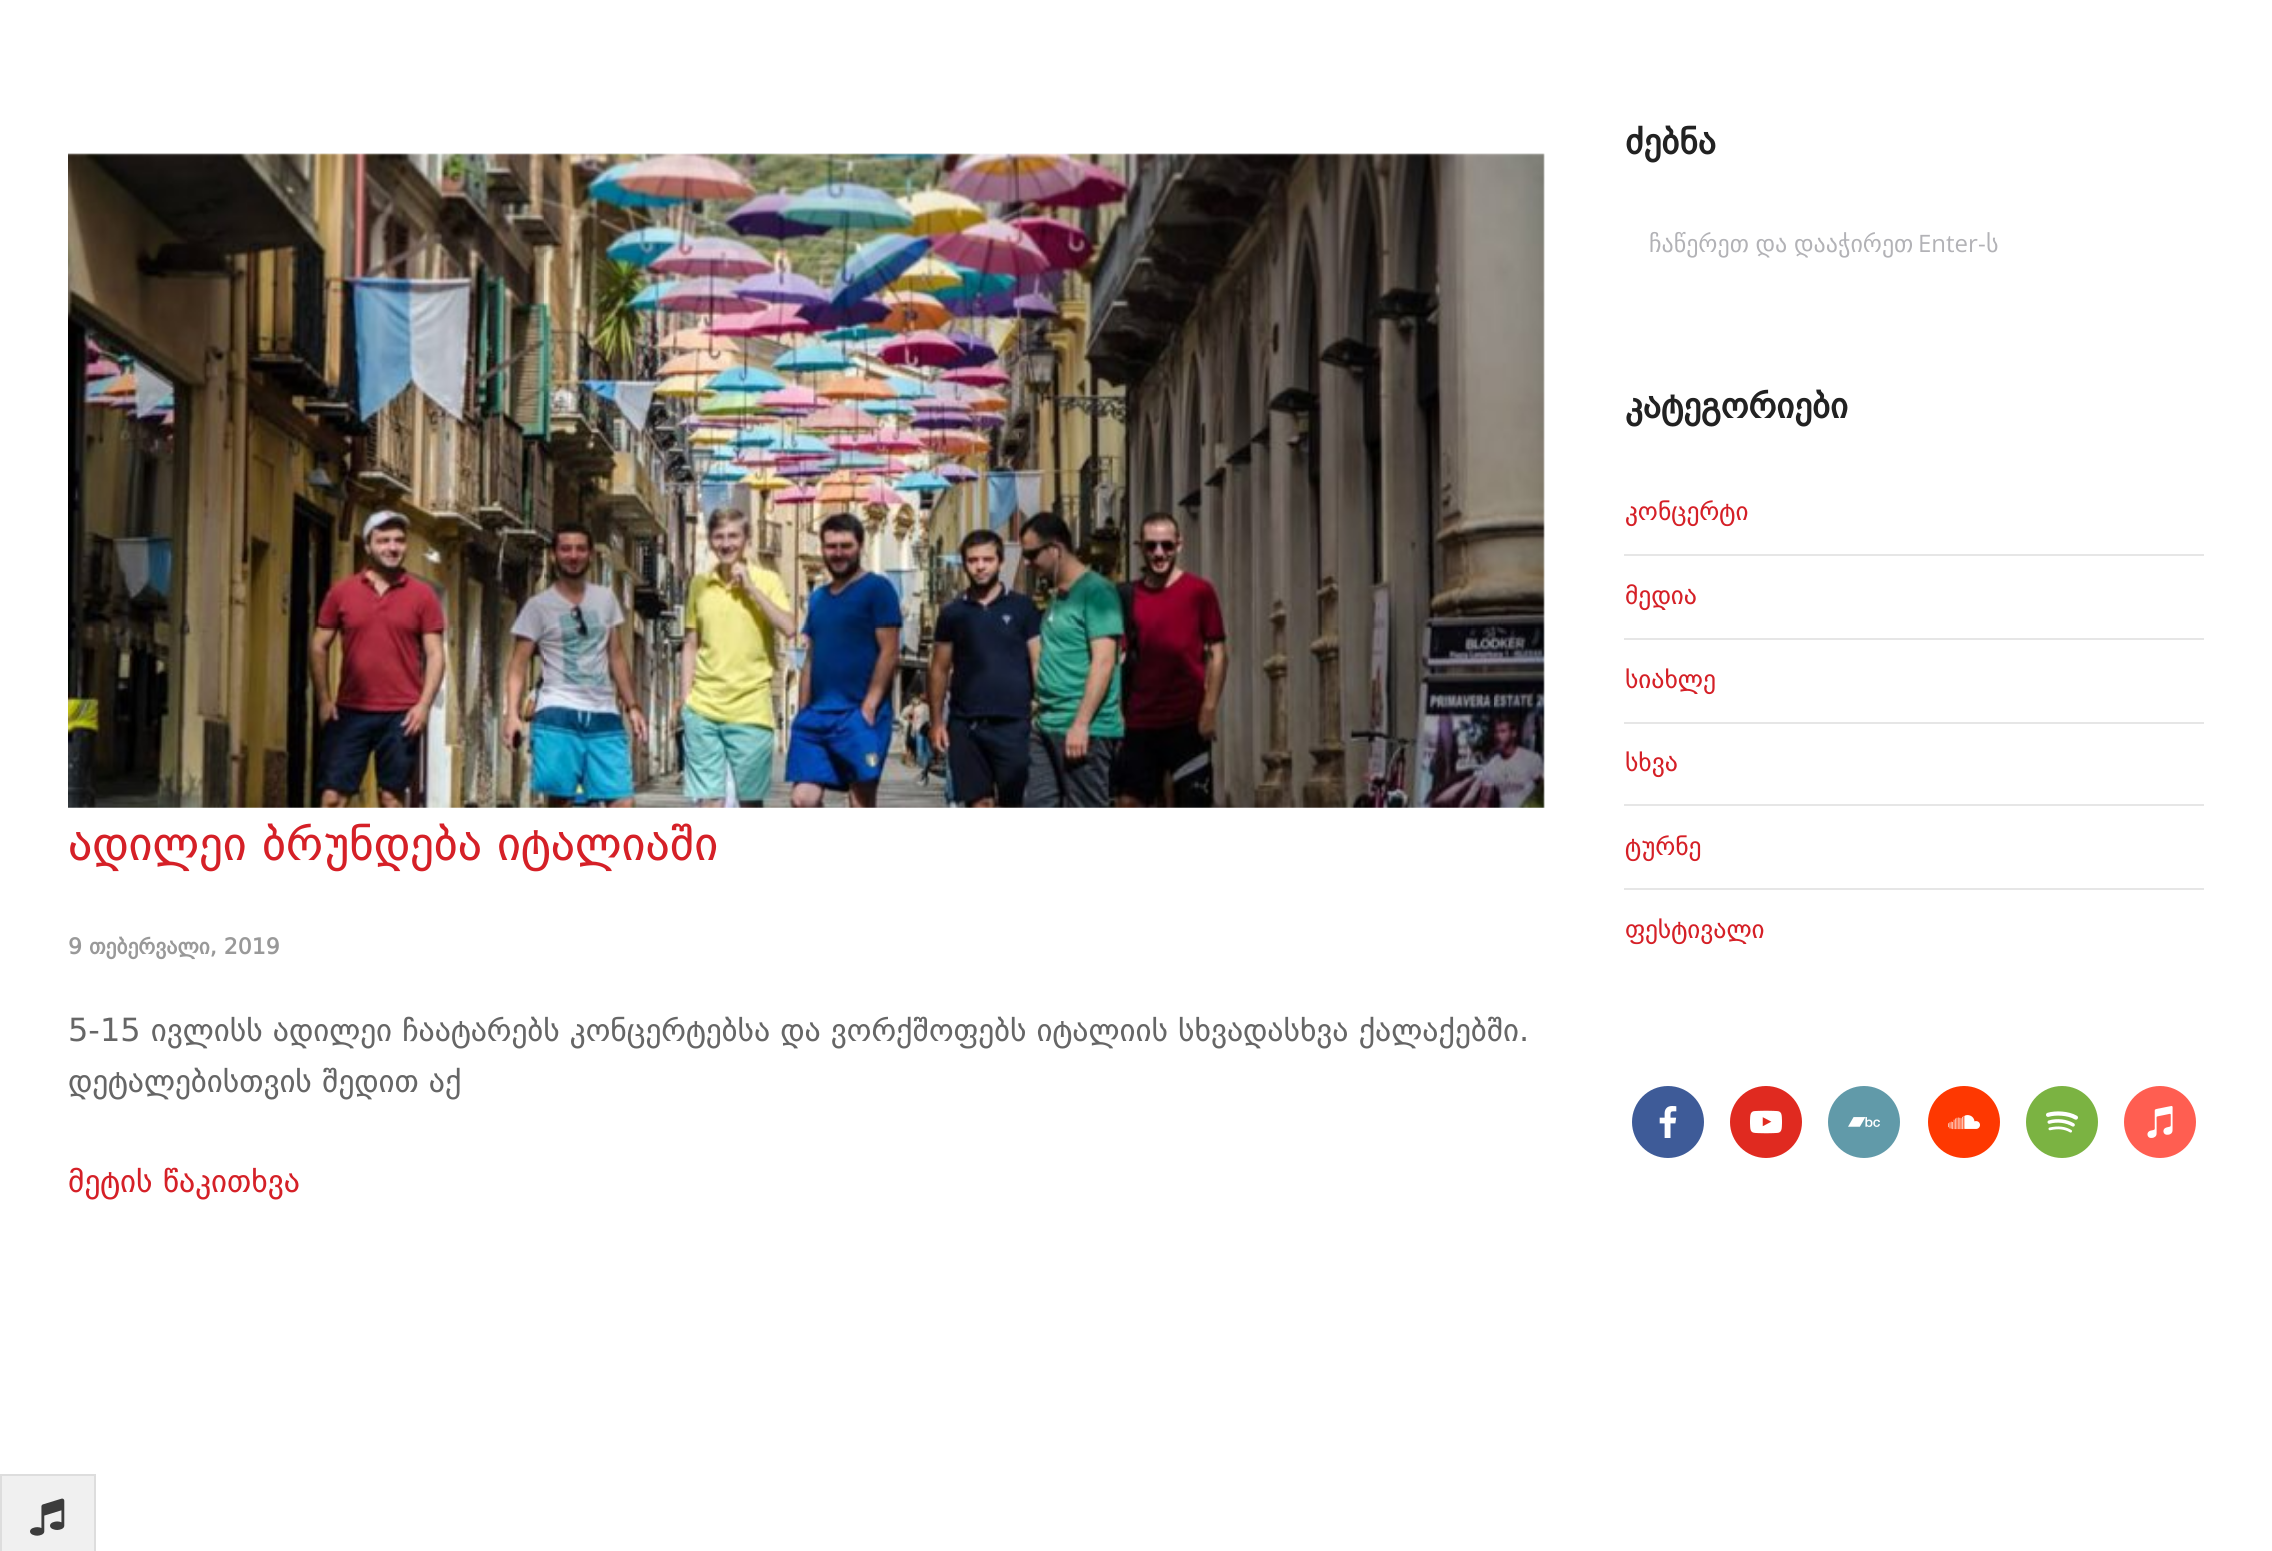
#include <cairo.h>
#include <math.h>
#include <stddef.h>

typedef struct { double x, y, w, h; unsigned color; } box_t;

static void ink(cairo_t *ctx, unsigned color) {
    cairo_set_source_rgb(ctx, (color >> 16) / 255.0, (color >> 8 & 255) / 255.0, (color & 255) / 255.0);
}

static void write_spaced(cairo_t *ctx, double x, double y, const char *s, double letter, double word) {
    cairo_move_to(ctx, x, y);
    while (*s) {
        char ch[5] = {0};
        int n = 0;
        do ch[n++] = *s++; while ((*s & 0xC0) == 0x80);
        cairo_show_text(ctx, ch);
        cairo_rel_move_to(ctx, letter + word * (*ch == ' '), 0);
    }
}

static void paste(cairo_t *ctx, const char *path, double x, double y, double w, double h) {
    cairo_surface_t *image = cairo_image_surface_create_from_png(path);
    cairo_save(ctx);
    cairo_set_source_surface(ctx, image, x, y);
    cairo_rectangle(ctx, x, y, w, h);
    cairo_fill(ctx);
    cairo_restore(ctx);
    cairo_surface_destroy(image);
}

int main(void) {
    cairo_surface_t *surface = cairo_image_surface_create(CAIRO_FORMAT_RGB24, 2272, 1551);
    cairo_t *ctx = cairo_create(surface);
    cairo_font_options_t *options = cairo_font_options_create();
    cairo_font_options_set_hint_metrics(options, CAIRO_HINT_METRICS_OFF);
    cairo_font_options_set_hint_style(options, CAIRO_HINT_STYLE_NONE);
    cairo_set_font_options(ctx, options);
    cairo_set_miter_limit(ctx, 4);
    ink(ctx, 0xFFFFFF);
    cairo_paint(ctx);
    cairo_select_font_face(ctx, "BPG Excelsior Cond", CAIRO_FONT_SLANT_NORMAL, CAIRO_FONT_WEIGHT_BOLD);
    cairo_set_font_size(ctx, 36);
    ink(ctx, 0x222222);
    cairo_move_to(ctx, 1625, 154);
    cairo_show_text(ctx, "ძებნა");
    cairo_select_font_face(ctx, "DejaVu Sans", CAIRO_FONT_SLANT_NORMAL, CAIRO_FONT_WEIGHT_NORMAL);
    cairo_set_font_size(ctx, 24);
    ink(ctx, 0xB2B2B6);
    write_spaced(ctx, 1649, 252, "ჩაწერეთ და დააჭირეთ", 0, -1);
    cairo_select_font_face(ctx, "Open Sans", CAIRO_FONT_SLANT_NORMAL, CAIRO_FONT_WEIGHT_NORMAL);
    cairo_move_to(ctx, 1918, 252);
    cairo_show_text(ctx, "Enter-");
    cairo_select_font_face(ctx, "DejaVu Sans", CAIRO_FONT_SLANT_NORMAL, CAIRO_FONT_WEIGHT_NORMAL);
    cairo_move_to(ctx, 1986, 252);
    cairo_show_text(ctx, "ს");
    cairo_select_font_face(ctx, "BPG Excelsior Cond", CAIRO_FONT_SLANT_NORMAL, CAIRO_FONT_WEIGHT_BOLD);
    cairo_set_font_size(ctx, 36);
    ink(ctx, 0x222222);
    cairo_move_to(ctx, 1625, 418);
    cairo_show_text(ctx, "კატეგორიები");
    ink(ctx, 0xE6E6E6);
    cairo_rectangle(ctx, 1624, 554, 580, 2);
    cairo_fill(ctx);
    cairo_select_font_face(ctx, "BPG Excelsior Cond", CAIRO_FONT_SLANT_NORMAL, CAIRO_FONT_WEIGHT_NORMAL);
    cairo_set_font_size(ctx, 26);
    ink(ctx, 0xD52027);
    cairo_move_to(ctx, 1625, 520);
    cairo_show_text(ctx, "კონცერტი");
    ink(ctx, 0xE6E6E6);
    cairo_rectangle(ctx, 1624, 638, 580, 2);
    cairo_fill(ctx);
    ink(ctx, 0xD52027);
    cairo_move_to(ctx, 1625, 604);
    cairo_show_text(ctx, "მედია");
    ink(ctx, 0xE6E6E6);
    cairo_rectangle(ctx, 1624, 722, 580, 2);
    cairo_fill(ctx);
    ink(ctx, 0xD52027);
    cairo_move_to(ctx, 1625, 688);
    cairo_show_text(ctx, "სიახლე");
    ink(ctx, 0xE6E6E6);
    cairo_rectangle(ctx, 1624, 804, 580, 2);
    cairo_fill(ctx);
    ink(ctx, 0xD52027);
    cairo_move_to(ctx, 1625, 771);
    cairo_show_text(ctx, "სხვა");
    ink(ctx, 0xE6E6E6);
    cairo_rectangle(ctx, 1624, 888, 580, 2);
    cairo_fill(ctx);
    ink(ctx, 0xD52027);
    cairo_move_to(ctx, 1625, 855);
    cairo_show_text(ctx, "ტურნე");
    cairo_move_to(ctx, 1625, 938);
    cairo_show_text(ctx, "ფესტივალი");
    ink(ctx, 0x3E5B98);
    cairo_new_path(ctx);
    cairo_arc(ctx, 1668, 1122, 36, 0, 2 * M_PI);
    cairo_fill(ctx);
    paste(ctx, "media/1.png", 1659, 1106, 18, 32);
    ink(ctx, 0xE02A20);
    cairo_arc(ctx, 1766, 1122, 36, 0, 2 * M_PI);
    cairo_fill(ctx);
    paste(ctx, "media/2.png", 1750, 1110, 32, 24);
    ink(ctx, 0x619AA9);
    cairo_arc(ctx, 1864, 1122, 36, 0, 2 * M_PI);
    cairo_fill(ctx);
    paste(ctx, "media/3.png", 1848, 1117, 32, 10);
    ink(ctx, 0xFE3801);
    cairo_arc(ctx, 1964, 1122, 36, 0, 2 * M_PI);
    cairo_fill(ctx);
    paste(ctx, "media/4.png", 1948, 1115, 32, 15);
    ink(ctx, 0x7BB342);
    cairo_arc(ctx, 2062, 1122, 36, 0, 2 * M_PI);
    cairo_fill(ctx);
    paste(ctx, "media/5.png", 2046, 1111, 32, 22);
    ink(ctx, 0xFF5E51);
    cairo_arc(ctx, 2160, 1122, 36, 0, 2 * M_PI);
    cairo_fill(ctx);
    paste(ctx, "media/6.png", 2147, 1106, 26, 32);
    paste(ctx, "media/7.png", 68, 153, 1477, 655);
    cairo_set_font_size(ctx, 48);
    ink(ctx, 0xD52027);
    cairo_move_to(ctx, 68, 860);
    cairo_show_text(ctx, "ადილეი ბრუნდება იტალიაში");
    cairo_select_font_face(ctx, "BPG Excelsior Cond", CAIRO_FONT_SLANT_NORMAL, CAIRO_FONT_WEIGHT_BOLD);
    cairo_set_font_size(ctx, 22);
    ink(ctx, 0x999999);
    cairo_move_to(ctx, 68, 954);
    cairo_show_text(ctx, "9 თებერვალი, 2019");
    cairo_select_font_face(ctx, "BPG Excelsior Cond", CAIRO_FONT_SLANT_NORMAL, CAIRO_FONT_WEIGHT_NORMAL);
    cairo_set_font_size(ctx, 32);
    ink(ctx, 0x666666);
    cairo_move_to(ctx, 68, 1041);
    cairo_show_text(ctx, "5-15 ივლისს ადილეი ჩაატარებს კონცერტებსა და ვორქშოფებს იტალიის სხვადასხვა ქალაქებში.");
    cairo_move_to(ctx, 68, 1092);
    cairo_show_text(ctx, "დეტალებისთვის შედით აქ");
    ink(ctx, 0xD52027);
    cairo_move_to(ctx, 68, 1192);
    cairo_show_text(ctx, "მეტის წაკითხვა");
    {
        static const box_t items[] = {
            {2, 1476, 92, 75, 0xF0F0F0},
            {0, 1474, 96, 2, 0xDDDDDD},
            {94, 1474, 2, 77, 0xDDDDDD},
            {0, 1474, 2, 77, 0xDDDDDD},
        };
        for (size_t i = 0; i < sizeof items / sizeof *items; i++) {
            ink(ctx, items[i].color);
            cairo_rectangle(ctx, items[i].x, items[i].y, items[i].w, items[i].h);
            cairo_fill(ctx);
        }
    }
    paste(ctx, "media/8.png", 30, 1498, 35, 38);
    cairo_surface_write_to_png(surface, "image.png");
    cairo_font_options_destroy(options);
    cairo_destroy(ctx);
    cairo_surface_destroy(surface);
    return 0;
}
